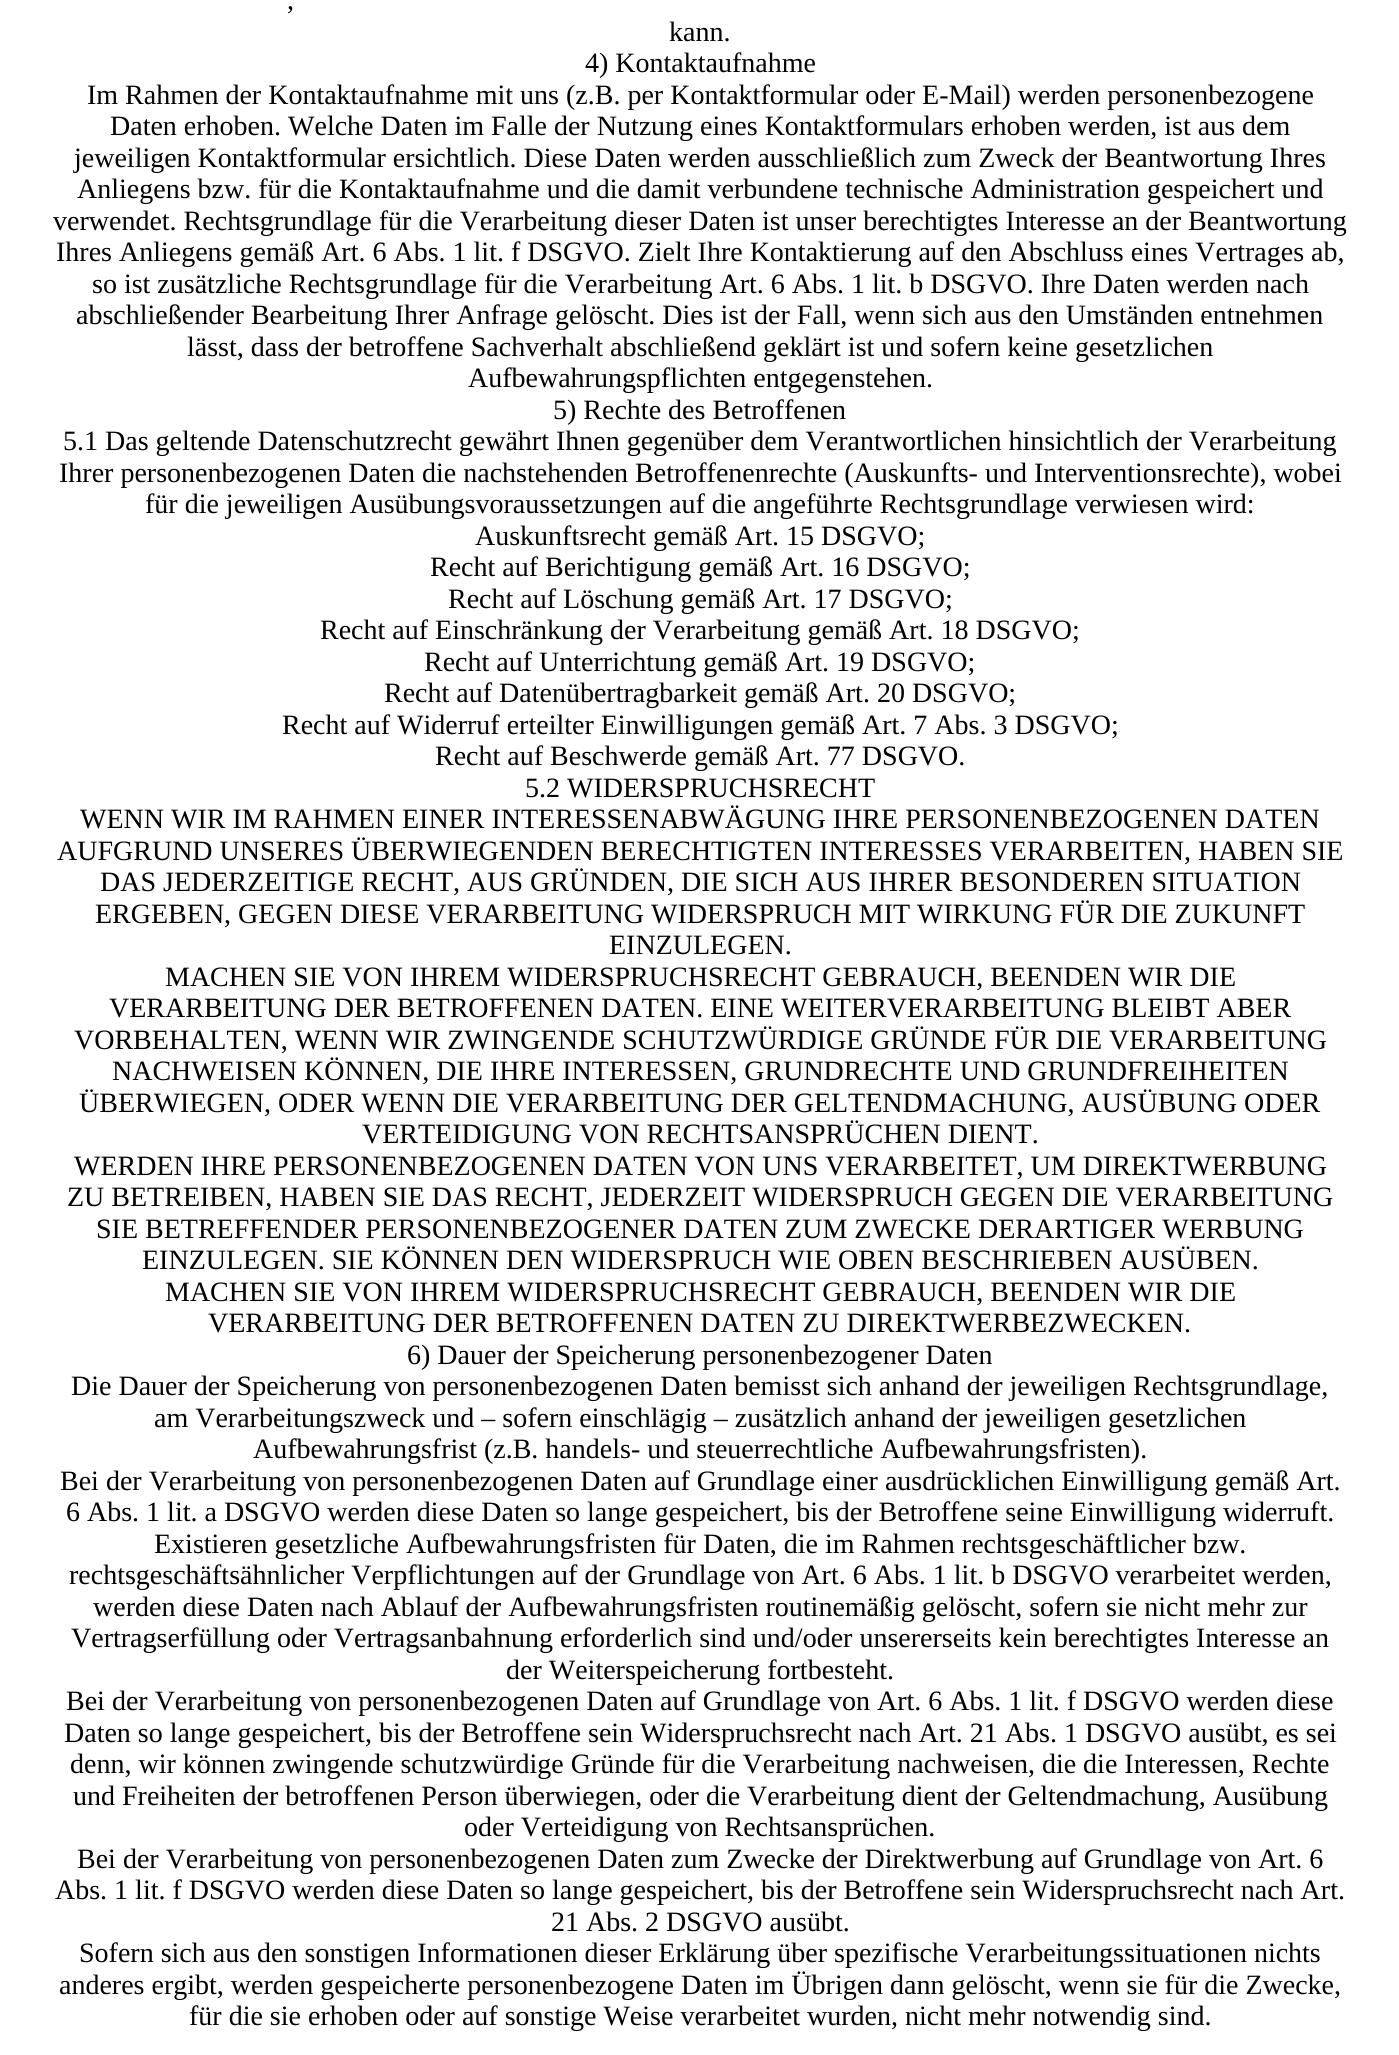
#include <cairo.h>
#include <math.h>
#include <stddef.h>

typedef struct { double x, y; const char *s; } line_t;

static void ink(cairo_t *ctx, unsigned color) {
    cairo_set_source_rgb(ctx, (color >> 16) / 255.0, (color >> 8 & 255) / 255.0, (color & 255) / 255.0);
}

int main(void) {
    cairo_surface_t *surface = cairo_image_surface_create(CAIRO_FORMAT_RGB24, 1399, 2055);
    cairo_t *ctx = cairo_create(surface);
    cairo_font_options_t *options = cairo_font_options_create();
    cairo_font_options_set_hint_metrics(options, CAIRO_HINT_METRICS_OFF);
    cairo_font_options_set_hint_style(options, CAIRO_HINT_STYLE_NONE);
    cairo_set_font_options(ctx, options);
    cairo_set_miter_limit(ctx, 4);
    ink(ctx, 0xFFFFFF);
    cairo_paint(ctx);
    cairo_select_font_face(ctx, "Liberation Serif", CAIRO_FONT_SLANT_NORMAL, CAIRO_FONT_WEIGHT_NORMAL);
    cairo_set_font_size(ctx, 28);
    ink(ctx, 0x000000);
    {
        static const line_t items[] = {
            {287, 9, ","},
            {669, 41, "kann."},
            {585, 72, "4) Kontaktaufnahme"},
            {87, 104, "Im Rahmen der Kontaktaufnahme mit uns (z.B. per Kontaktformular oder E-Mail) werden personenbezogene"},
            {110, 135, "Daten erhoben. Welche Daten im Falle der Nutzung eines Kontaktformulars erhoben werden, ist aus dem"},
            {74, 167, "jeweiligen Kontaktformular ersichtlich. Diese Daten werden ausschließlich zum Zweck der Beantwortung Ihres"},
            {77, 198, "Anliegens bzw. für die Kontaktaufnahme und die damit verbundene technische Administration gespeichert und"},
            {53, 230, "verwendet. Rechtsgrundlage für die Verarbeitung dieser Daten ist unser berechtigtes Interesse an der Beantwortung"},
            {56, 261, "Ihres Anliegens gemäß Art. 6 Abs. 1 lit. f DSGVO. Zielt Ihre Kontaktierung auf den Abschluss eines Vertrages ab,"},
            {92, 293, "so ist zusätzliche Rechtsgrundlage für die Verarbeitung Art. 6 Abs. 1 lit. b DSGVO. Ihre Daten werden nach"},
            {76, 324, "abschließender Bearbeitung Ihrer Anfrage gelöscht. Dies ist der Fall, wenn sich aus den Umständen entnehmen"},
            {187, 356, "lässt, dass der betroffene Sachverhalt abschließend geklärt ist und sofern keine gesetzlichen"},
            {468, 387, "Aufbewahrungspflichten entgegenstehen."},
            {553, 419, "5) Rechte des Betroffenen"},
            {63, 450, "5.1 Das geltende Datenschutzrecht gewährt Ihnen gegenüber dem Verantwortlichen hinsichtlich der Verarbeitung"},
            {59, 482, "Ihrer personenbezogenen Daten die nachstehenden Betroffenenrechte (Auskunfts- und Interventionsrechte), wobei"},
            {145, 513, "für die jeweiligen Ausübungsvoraussetzungen auf die angeführte Rechtsgrundlage verwiesen wird:"},
            {475, 545, "Auskunftsrecht gemäß Art. 15 DSGVO;"},
            {430, 576, "Recht auf Berichtigung gemäß Art. 16 DSGVO;"},
            {448, 608, "Recht auf Löschung gemäß Art. 17 DSGVO;"},
            {320, 639, "Recht auf Einschränkung der Verarbeitung gemäß Art. 18 DSGVO;"},
            {424, 671, "Recht auf Unterrichtung gemäß Art. 19 DSGVO;"},
            {384, 702, "Recht auf Datenübertragbarkeit gemäß Art. 20 DSGVO;"},
            {282, 734, "Recht auf Widerruf erteilter Einwilligungen gemäß Art. 7 Abs. 3 DSGVO;"},
            {435, 765, "Recht auf Beschwerde gemäß Art. 77 DSGVO."},
            {525, 797, "5.2 WIDERSPRUCHSRECHT"},
            {80, 828, "WENN WIR IM RAHMEN EINER INTERESSENABWÄGUNG IHRE PERSONENBEZOGENEN DATEN"},
            {57, 860, "AUFGRUND UNSERES ÜBERWIEGENDEN BERECHTIGTEN INTERESSES VERARBEITEN, HABEN SIE"},
            {100, 891, "DAS JEDERZEITIGE RECHT, AUS GRÜNDEN, DIE SICH AUS IHRER BESONDEREN SITUATION"},
            {95, 923, "ERGEBEN, GEGEN DIESE VERARBEITUNG WIDERSPRUCH MIT WIRKUNG FÜR DIE ZUKUNFT"},
            {609, 954, "EINZULEGEN."},
            {165, 986, "MACHEN SIE VON IHREM WIDERSPRUCHSRECHT GEBRAUCH, BEENDEN WIR DIE"},
            {109, 1017, "VERARBEITUNG DER BETROFFENEN DATEN. EINE WEITERVERARBEITUNG BLEIBT ABER"},
            {74, 1049, "VORBEHALTEN, WENN WIR ZWINGENDE SCHUTZWÜRDIGE GRÜNDE FÜR DIE VERARBEITUNG"},
            {112, 1080, "NACHWEISEN KÖNNEN, DIE IHRE INTERESSEN, GRUNDRECHTE UND GRUNDFREIHEITEN"},
            {79, 1112, "ÜBERWIEGEN, ODER WENN DIE VERARBEITUNG DER GELTENDMACHUNG, AUSÜBUNG ODER"},
            {362, 1143, "VERTEIDIGUNG VON RECHTSANSPRÜCHEN DIENT."},
            {74, 1175, "WERDEN IHRE PERSONENBEZOGENEN DATEN VON UNS VERARBEITET, UM DIREKTWERBUNG"},
            {67, 1206, "ZU BETREIBEN, HABEN SIE DAS RECHT, JEDERZEIT WIDERSPRUCH GEGEN DIE VERARBEITUNG"},
            {96, 1238, "SIE BETREFFENDER PERSONENBEZOGENER DATEN ZUM ZWECKE DERARTIGER WERBUNG"},
            {142, 1269, "EINZULEGEN. SIE KÖNNEN DEN WIDERSPRUCH WIE OBEN BESCHRIEBEN AUSÜBEN."},
            {165, 1301, "MACHEN SIE VON IHREM WIDERSPRUCHSRECHT GEBRAUCH, BEENDEN WIR DIE"},
            {208, 1332, "VERARBEITUNG DER BETROFFENEN DATEN ZU DIREKTWERBEZWECKEN."},
            {407, 1364, "6) Dauer der Speicherung personenbezogener Daten"},
            {71, 1395, "Die Dauer der Speicherung von personenbezogenen Daten bemisst sich anhand der jeweiligen Rechtsgrundlage,"},
            {154, 1427, "am Verarbeitungszweck und – sofern einschlägig – zusätzlich anhand der jeweiligen gesetzlichen"},
            {253, 1458, "Aufbewahrungsfrist (z.B. handels- und steuerrechtliche Aufbewahrungsfristen)."},
            {60, 1490, "Bei der Verarbeitung von personenbezogenen Daten auf Grundlage einer ausdrücklichen Einwilligung gemäß Art."},
            {66, 1521, "6 Abs. 1 lit. a DSGVO werden diese Daten so lange gespeichert, bis der Betroffene seine Einwilligung widerruft."},
            {154, 1553, "Existieren gesetzliche Aufbewahrungsfristen für Daten, die im Rahmen rechtsgeschäftlicher bzw."},
            {69, 1584, "rechtsgeschäftsähnlicher Verpflichtungen auf der Grundlage von Art. 6 Abs. 1 lit. b DSGVO verarbeitet werden,"},
            {93, 1616, "werden diese Daten nach Ablauf der Aufbewahrungsfristen routinemäßig gelöscht, sofern sie nicht mehr zur"},
            {71, 1647, "Vertragserfüllung oder Vertragsanbahnung erforderlich sind und/oder unsererseits kein berechtigtes Interesse an"},
            {506, 1679, "der Weiterspeicherung fortbesteht."},
            {66, 1710, "Bei der Verarbeitung von personenbezogenen Daten auf Grundlage von Art. 6 Abs. 1 lit. f DSGVO werden diese"},
            {64, 1742, "Daten so lange gespeichert, bis der Betroffene sein Widerspruchsrecht nach Art. 21 Abs. 1 DSGVO ausübt, es sei"},
            {70, 1773, "denn, wir können zwingende schutzwürdige Gründe für die Verarbeitung nachweisen, die die Interessen, Rechte"},
            {73, 1805, "und Freiheiten der betroffenen Person überwiegen, oder die Verarbeitung dient der Geltendmachung, Ausübung"},
            {464, 1836, "oder Verteidigung von Rechtsansprüchen."},
            {77, 1868, "Bei der Verarbeitung von personenbezogenen Daten zum Zwecke der Direktwerbung auf Grundlage von Art. 6"},
            {55, 1899, "Abs. 1 lit. f DSGVO werden diese Daten so lange gespeichert, bis der Betroffene sein Widerspruchsrecht nach Art."},
            {551, 1931, "21 Abs. 2 DSGVO ausübt."},
            {79, 1962, "Sofern sich aus den sonstigen Informationen dieser Erklärung über spezifische Verarbeitungssituationen nichts"},
            {59, 1994, "anderes ergibt, werden gespeicherte personenbezogene Daten im Übrigen dann gelöscht, wenn sie für die Zwecke,"},
            {189, 2025, "für die sie erhoben oder auf sonstige Weise verarbeitet wurden, nicht mehr notwendig sind."},
        };
        for (size_t i = 0; i < sizeof items / sizeof *items; i++) {
            cairo_move_to(ctx, items[i].x, items[i].y);
            cairo_show_text(ctx, items[i].s);
        }
    }
    cairo_surface_write_to_png(surface, "image.png");
    cairo_font_options_destroy(options);
    cairo_destroy(ctx);
    cairo_surface_destroy(surface);
    return 0;
}
